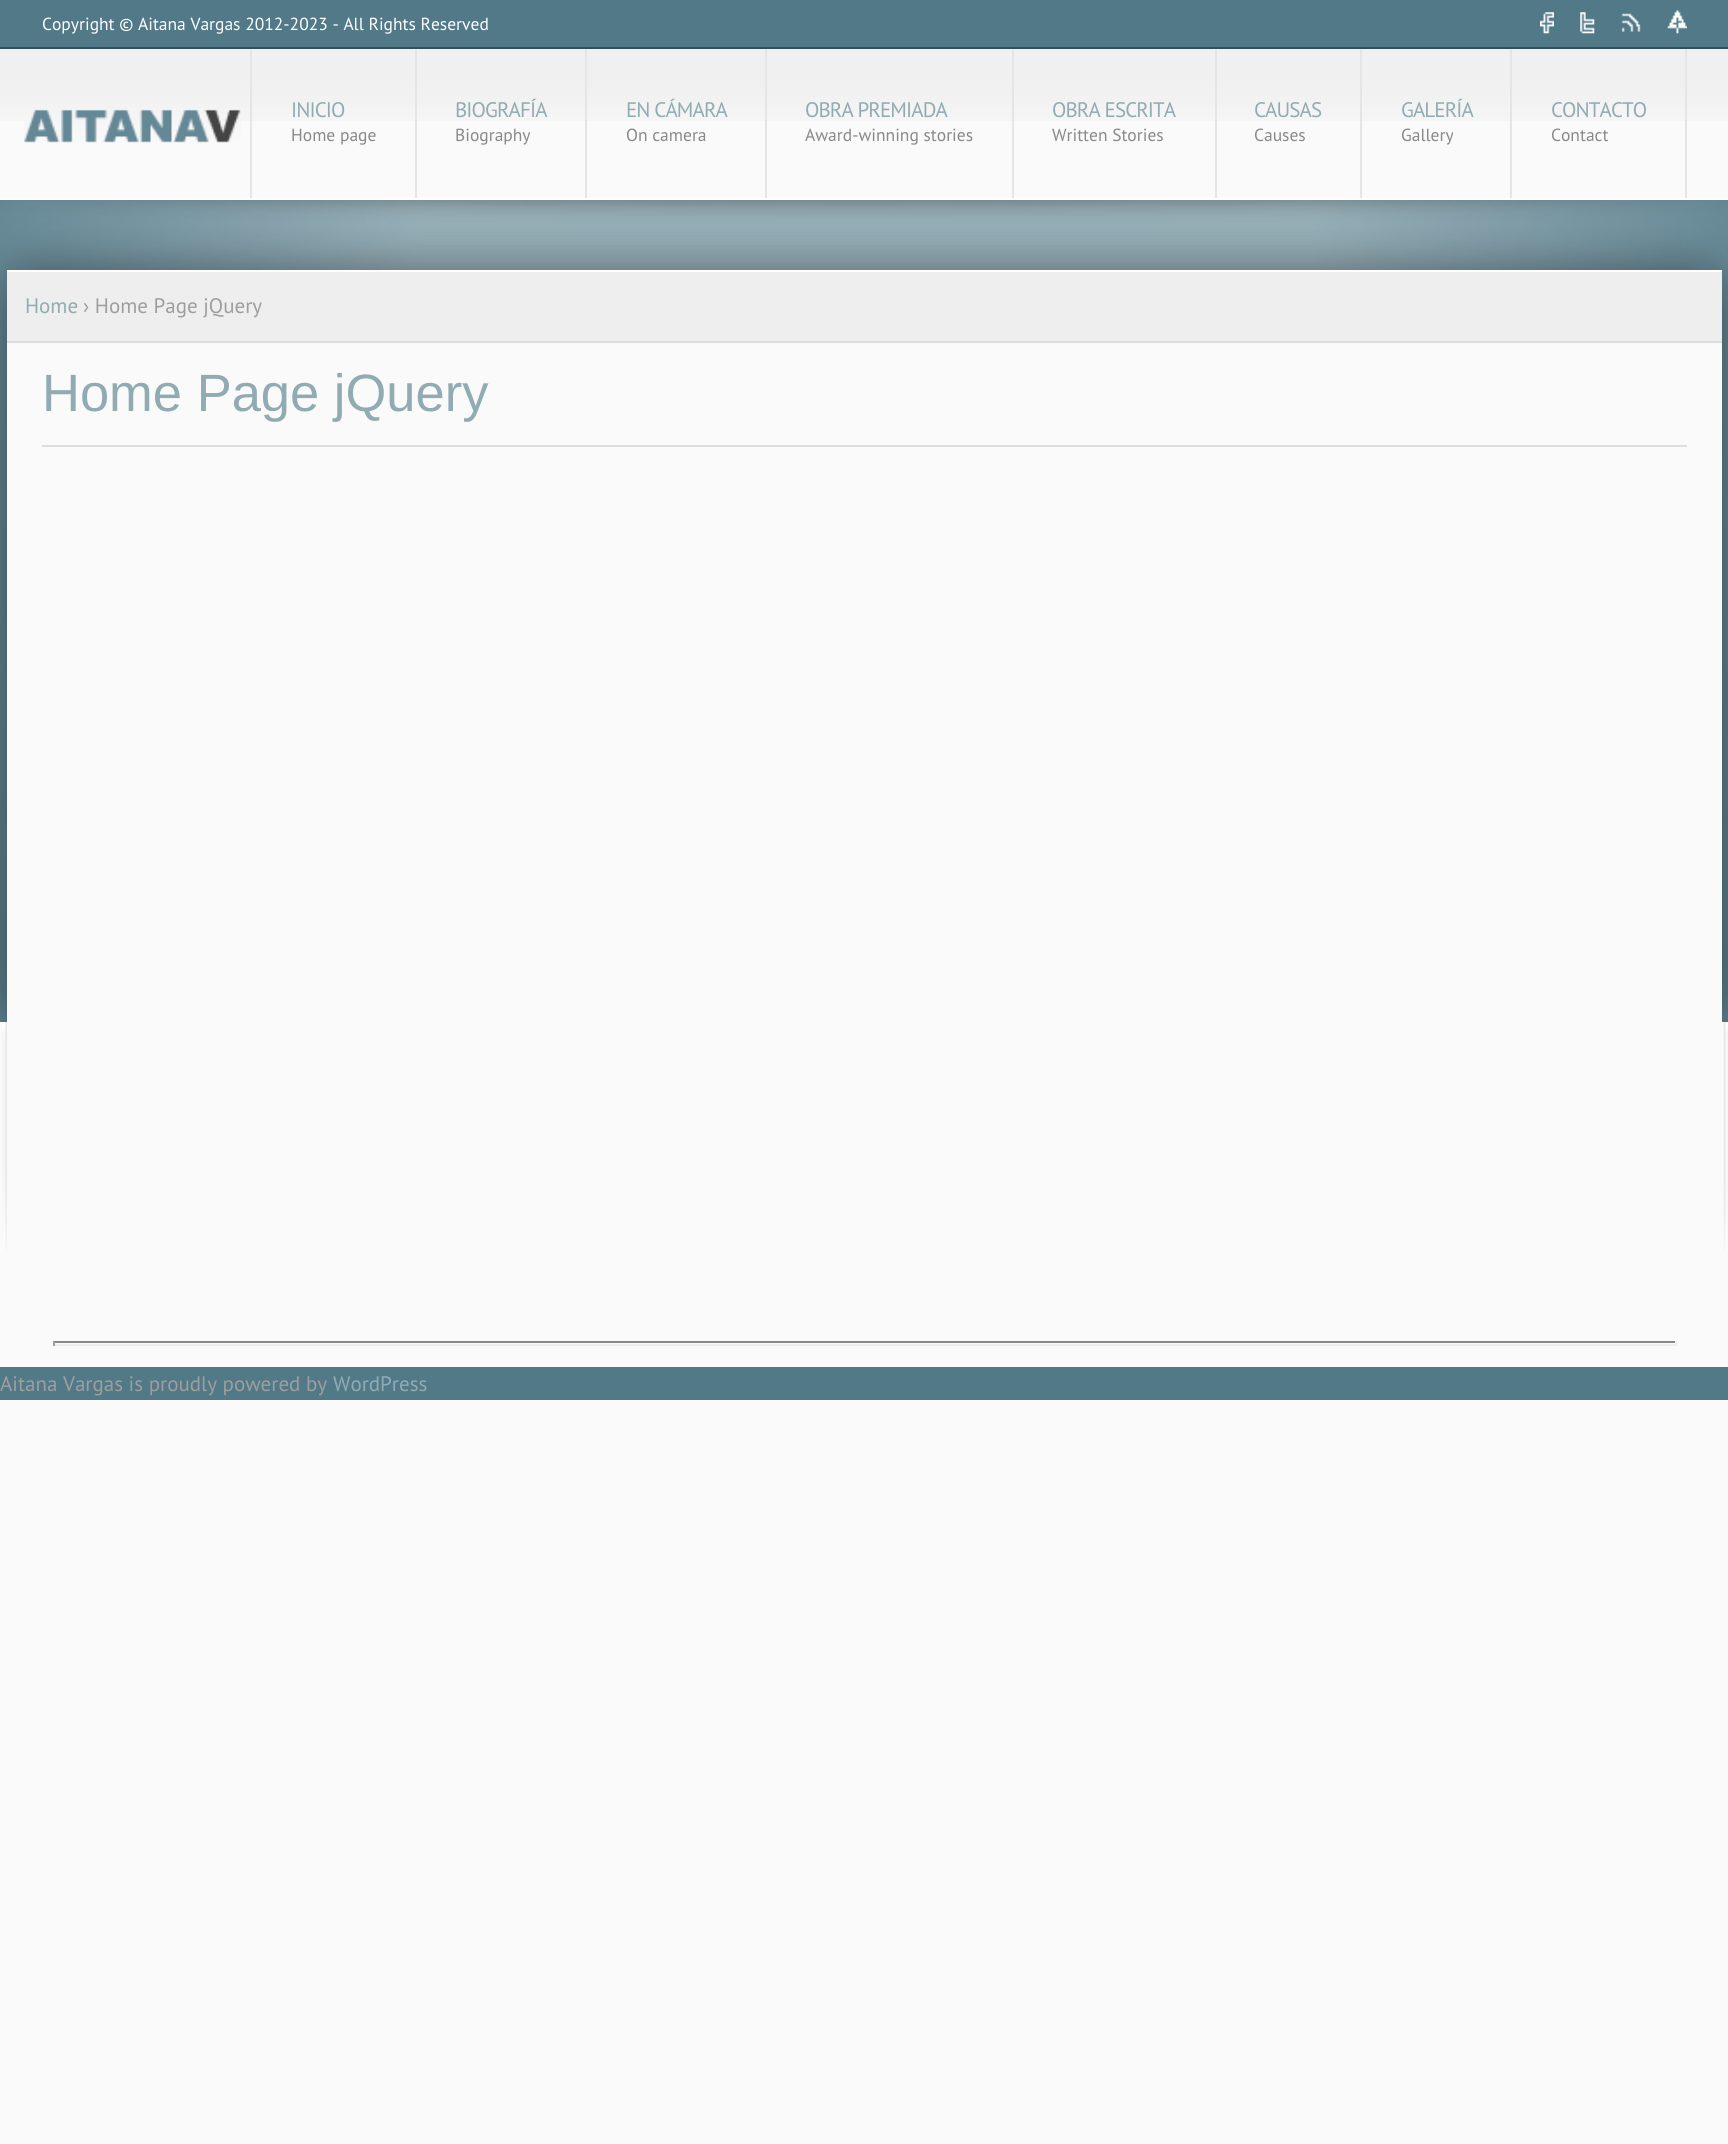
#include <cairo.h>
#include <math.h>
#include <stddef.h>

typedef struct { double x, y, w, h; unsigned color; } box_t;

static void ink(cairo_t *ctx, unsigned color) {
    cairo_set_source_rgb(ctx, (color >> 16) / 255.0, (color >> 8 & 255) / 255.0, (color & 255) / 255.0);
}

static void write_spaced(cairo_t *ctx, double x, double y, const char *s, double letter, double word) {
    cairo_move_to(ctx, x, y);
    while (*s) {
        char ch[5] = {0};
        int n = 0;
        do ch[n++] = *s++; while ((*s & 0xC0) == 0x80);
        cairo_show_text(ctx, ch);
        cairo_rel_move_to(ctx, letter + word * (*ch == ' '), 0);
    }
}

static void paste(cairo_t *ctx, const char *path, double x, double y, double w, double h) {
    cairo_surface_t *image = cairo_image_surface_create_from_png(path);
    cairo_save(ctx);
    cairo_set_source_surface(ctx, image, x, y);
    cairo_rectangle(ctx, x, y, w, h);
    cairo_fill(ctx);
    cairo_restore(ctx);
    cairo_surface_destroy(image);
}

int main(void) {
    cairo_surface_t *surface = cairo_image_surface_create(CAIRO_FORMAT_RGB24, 1728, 2144);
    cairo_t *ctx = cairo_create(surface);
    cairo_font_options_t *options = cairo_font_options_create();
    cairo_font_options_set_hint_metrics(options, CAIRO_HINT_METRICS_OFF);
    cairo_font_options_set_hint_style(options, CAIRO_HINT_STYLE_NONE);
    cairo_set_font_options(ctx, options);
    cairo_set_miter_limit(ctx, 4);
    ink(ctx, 0xFAFAFA);
    cairo_paint(ctx);
    ink(ctx, 0x527988);
    cairo_rectangle(ctx, 0, 0, 1728, 47);
    cairo_fill(ctx);
    ink(ctx, 0x324F59);
    cairo_rectangle(ctx, 0, 47, 1728, 2);
    cairo_fill(ctx);
    cairo_select_font_face(ctx, "PT Sans", CAIRO_FONT_SLANT_NORMAL, CAIRO_FONT_WEIGHT_NORMAL);
    cairo_set_font_size(ctx, 17.5);
    ink(ctx, 0xFFFFFF);
    cairo_move_to(ctx, 42, 30);
    cairo_show_text(ctx, "Copyright © Aitana Vargas 2012-2023 - All Rights Reserved");
    paste(ctx, "media/1.png", 1540, 12, 14, 22);
    paste(ctx, "media/2.png", 1580, 12, 15, 22);
    paste(ctx, "media/3.png", 1620, 13, 21, 19);
    paste(ctx, "media/4.png", 1667, 10, 20, 24);
    paste(ctx, "media/5.png", 0, 49, 1728, 72);
    cairo_rectangle(ctx, 0, 198, 1728, 2);
    cairo_fill(ctx);
    paste(ctx, "media/6.png", 24, 109, 217, 34);
    ink(ctx, 0xE5E5E5);
    cairo_rectangle(ctx, 415, 49, 2, 149);
    cairo_fill(ctx);
    cairo_rectangle(ctx, 250, 49, 2, 149);
    cairo_fill(ctx);
    cairo_set_font_size(ctx, 21);
    ink(ctx, 0x91ABB3);
    write_spaced(ctx, 291, 117, "INICIO", -0.9, 0);
    cairo_set_font_size(ctx, 17.5);
    ink(ctx, 0x888888);
    cairo_move_to(ctx, 291, 141);
    cairo_show_text(ctx, "Home page");
    ink(ctx, 0xE5E5E5);
    cairo_rectangle(ctx, 585, 49, 2, 149);
    cairo_fill(ctx);
    cairo_set_font_size(ctx, 21);
    ink(ctx, 0x91ABB3);
    write_spaced(ctx, 455, 117, "BIOGRAFÍA", -0.9, 0);
    cairo_set_font_size(ctx, 17.5);
    ink(ctx, 0x888888);
    cairo_move_to(ctx, 455, 141);
    cairo_show_text(ctx, "Biography");
    ink(ctx, 0xE5E5E5);
    cairo_rectangle(ctx, 765, 49, 2, 149);
    cairo_fill(ctx);
    cairo_set_font_size(ctx, 21);
    ink(ctx, 0x91ABB3);
    write_spaced(ctx, 626, 117, "EN CÁMARA", -0.9, 0);
    cairo_set_font_size(ctx, 17.5);
    ink(ctx, 0x888888);
    cairo_move_to(ctx, 626, 141);
    cairo_show_text(ctx, "On camera");
    ink(ctx, 0xE5E5E5);
    cairo_rectangle(ctx, 1012, 49, 2, 149);
    cairo_fill(ctx);
    cairo_set_font_size(ctx, 21);
    ink(ctx, 0x91ABB3);
    write_spaced(ctx, 805, 117, "OBRA PREMIADA", -0.9, 0);
    cairo_set_font_size(ctx, 17.5);
    ink(ctx, 0x888888);
    cairo_move_to(ctx, 805, 141);
    cairo_show_text(ctx, "Award-winning stories");
    ink(ctx, 0xE5E5E5);
    cairo_rectangle(ctx, 1215, 49, 2, 149);
    cairo_fill(ctx);
    cairo_set_font_size(ctx, 21);
    ink(ctx, 0x91ABB3);
    write_spaced(ctx, 1052, 117, "OBRA ESCRITA", -0.9, 0);
    cairo_set_font_size(ctx, 17.5);
    ink(ctx, 0x888888);
    cairo_move_to(ctx, 1052, 141);
    cairo_show_text(ctx, "Written Stories");
    ink(ctx, 0xE5E5E5);
    cairo_rectangle(ctx, 1360, 49, 2, 149);
    cairo_fill(ctx);
    cairo_set_font_size(ctx, 21);
    ink(ctx, 0x91ABB3);
    write_spaced(ctx, 1254, 117, "CAUSAS", -0.9, 0);
    cairo_set_font_size(ctx, 17.5);
    ink(ctx, 0x888888);
    cairo_move_to(ctx, 1254, 141);
    cairo_show_text(ctx, "Causes");
    ink(ctx, 0xE5E5E5);
    cairo_rectangle(ctx, 1510, 49, 2, 149);
    cairo_fill(ctx);
    cairo_set_font_size(ctx, 21);
    ink(ctx, 0x91ABB3);
    write_spaced(ctx, 1401, 117, "GALERÍA", -0.9, 0);
    cairo_set_font_size(ctx, 17.5);
    ink(ctx, 0x888888);
    cairo_move_to(ctx, 1401, 141);
    cairo_show_text(ctx, "Gallery");
    ink(ctx, 0xE5E5E5);
    cairo_rectangle(ctx, 1685, 49, 2, 149);
    cairo_fill(ctx);
    cairo_set_font_size(ctx, 21);
    ink(ctx, 0x91ABB3);
    write_spaced(ctx, 1551, 117, "CONTACTO", -0.9, 0);
    cairo_set_font_size(ctx, 17.5);
    ink(ctx, 0x888888);
    cairo_move_to(ctx, 1551, 141);
    cairo_show_text(ctx, "Contact");
    ink(ctx, 0x527988);
    cairo_rectangle(ctx, 0, 200, 1728, 822);
    cairo_fill(ctx);
    paste(ctx, "media/7.png", 0, 200, 1728, 822);
    paste(ctx, "media/8.png", 2, 1022, 5, 228);
    paste(ctx, "media/9.png", 1723, 1022, 5, 228);
    {
        static const box_t items[] = {
            {7, 343, 1715, 679, 0xFAFAFA},
            {7, 272, 1715, 69, 0xEEEEEE},
            {7, 270, 1715, 2, 0xFFFFFF},
            {7, 341, 1715, 2, 0xDDDDDD},
        };
        for (size_t i = 0; i < sizeof items / sizeof *items; i++) {
            ink(ctx, items[i].color);
            cairo_rectangle(ctx, items[i].x, items[i].y, items[i].w, items[i].h);
            cairo_fill(ctx);
        }
    }
    cairo_set_font_size(ctx, 21);
    ink(ctx, 0x91ABB3);
    cairo_move_to(ctx, 25, 313);
    cairo_show_text(ctx, "Home");
    ink(ctx, 0x9E9E9E);
    cairo_move_to(ctx, 83, 313);
    cairo_show_text(ctx, "› Home Page jQuery");
    ink(ctx, 0xDDDDDD);
    cairo_rectangle(ctx, 42, 445, 1645, 2);
    cairo_fill(ctx);
    cairo_select_font_face(ctx, "Liberation Sans", CAIRO_FONT_SLANT_NORMAL, CAIRO_FONT_WEIGHT_NORMAL);
    cairo_set_font_size(ctx, 52.5);
    ink(ctx, 0x91ABB3);
    cairo_move_to(ctx, 42, 411);
    cairo_show_text(ctx, "Home Page jQuery");
    {
        static const box_t items[] = {
            {53, 1341, 1624, 2, 0x888888},
            {1675, 1341, 2, 5, 0xEEEEEE},
            {53, 1344, 1624, 2, 0xEEEEEE},
            {53, 1341, 2, 5, 0x9F9F9F},
            {0, 1367, 1728, 33, 0x527988},
        };
        for (size_t i = 0; i < sizeof items / sizeof *items; i++) {
            ink(ctx, items[i].color);
            cairo_rectangle(ctx, items[i].x, items[i].y, items[i].w, items[i].h);
            cairo_fill(ctx);
        }
    }
    cairo_select_font_face(ctx, "PT Sans", CAIRO_FONT_SLANT_NORMAL, CAIRO_FONT_WEIGHT_NORMAL);
    cairo_set_font_size(ctx, 21);
    ink(ctx, 0x9E9E9E);
    cairo_move_to(ctx, 0, 1391);
    cairo_show_text(ctx, "Aitana Vargas is proudly powered by");
    ink(ctx, 0x91ABB3);
    cairo_move_to(ctx, 333, 1391);
    cairo_show_text(ctx, "WordPress");
    cairo_surface_write_to_png(surface, "image.png");
    cairo_font_options_destroy(options);
    cairo_destroy(ctx);
    cairo_surface_destroy(surface);
    return 0;
}
